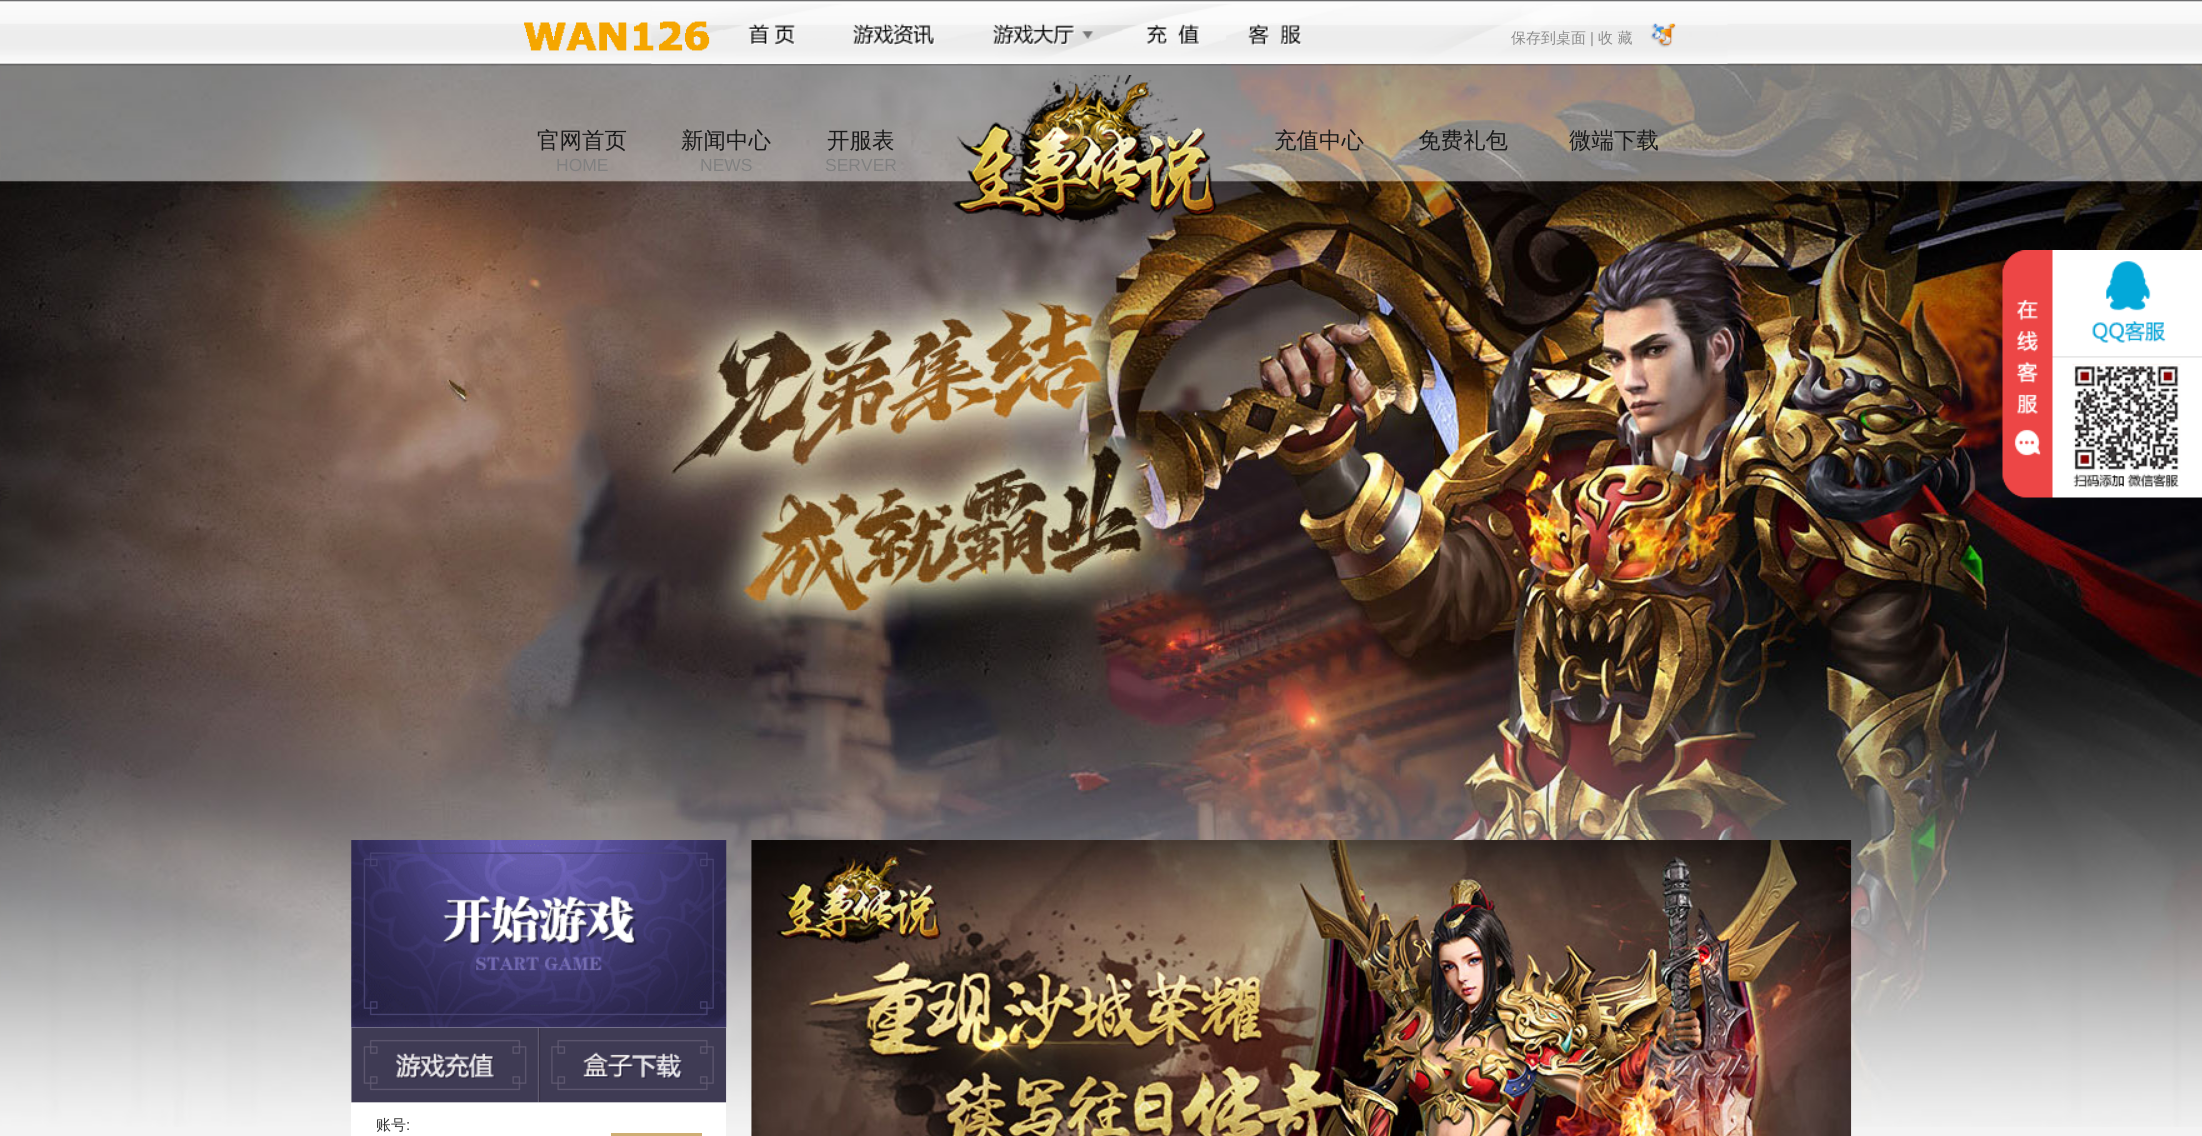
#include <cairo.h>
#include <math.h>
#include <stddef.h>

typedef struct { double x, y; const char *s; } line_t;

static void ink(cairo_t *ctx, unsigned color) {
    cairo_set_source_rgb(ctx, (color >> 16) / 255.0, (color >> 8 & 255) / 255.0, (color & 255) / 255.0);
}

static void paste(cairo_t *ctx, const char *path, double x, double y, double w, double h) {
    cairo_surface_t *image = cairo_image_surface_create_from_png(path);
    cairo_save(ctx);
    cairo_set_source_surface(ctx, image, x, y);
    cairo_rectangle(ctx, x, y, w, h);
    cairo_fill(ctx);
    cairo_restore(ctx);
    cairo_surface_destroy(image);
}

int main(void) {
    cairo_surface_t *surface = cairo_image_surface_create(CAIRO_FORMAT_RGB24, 2202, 1136);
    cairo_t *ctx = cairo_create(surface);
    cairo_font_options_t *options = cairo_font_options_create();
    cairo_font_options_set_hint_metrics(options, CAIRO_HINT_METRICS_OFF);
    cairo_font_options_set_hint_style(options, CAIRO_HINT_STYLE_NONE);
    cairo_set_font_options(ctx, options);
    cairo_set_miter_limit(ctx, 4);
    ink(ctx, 0xF3F3F3);
    cairo_paint(ctx);
    paste(ctx, "media/1.png", 0, 63, 2202, 1064);
    paste(ctx, "media/2.png", 0, 0, 2202, 66);
    paste(ctx, "media/3.png", 651, 4, 1077, 60);
    paste(ctx, "media/4.png", 524, 21, 186, 30);
    paste(ctx, "media/5.png", 722, 23, 99, 41);
    paste(ctx, "media/6.png", 830, 23, 128, 41);
    paste(ctx, "media/7.png", 972, 23, 128, 41);
    paste(ctx, "media/8.png", 1122, 14, 99, 50);
    paste(ctx, "media/9.png", 1226, 23, 99, 41);
    cairo_select_font_face(ctx, "WenQuanYi Zen Hei Medium", CAIRO_FONT_SLANT_NORMAL, CAIRO_FONT_WEIGHT_NORMAL);
    cairo_set_font_size(ctx, 15);
    ink(ctx, 0x8B8B8B);
    cairo_move_to(ctx, 1511, 43);
    cairo_show_text(ctx, "保存到桌面");
    cairo_select_font_face(ctx, "Liberation Sans", CAIRO_FONT_SLANT_NORMAL, CAIRO_FONT_WEIGHT_NORMAL);
    cairo_move_to(ctx, 1590, 43);
    cairo_show_text(ctx, "|");
    cairo_select_font_face(ctx, "WenQuanYi Zen Hei Medium", CAIRO_FONT_SLANT_NORMAL, CAIRO_FONT_WEIGHT_NORMAL);
    cairo_move_to(ctx, 1598, 43);
    cairo_show_text(ctx, "收 藏");
    cairo_set_font_size(ctx, 22.5);
    ink(ctx, 0x1A1A1A);
    cairo_move_to(ctx, 537, 148);
    cairo_show_text(ctx, "官网首页");
    cairo_select_font_face(ctx, "Liberation Sans", CAIRO_FONT_SLANT_NORMAL, CAIRO_FONT_WEIGHT_NORMAL);
    cairo_set_font_size(ctx, 17.5);
    ink(ctx, 0x808080);
    cairo_move_to(ctx, 556, 171);
    cairo_show_text(ctx, "HOME");
    cairo_select_font_face(ctx, "WenQuanYi Zen Hei Medium", CAIRO_FONT_SLANT_NORMAL, CAIRO_FONT_WEIGHT_NORMAL);
    cairo_set_font_size(ctx, 22.5);
    ink(ctx, 0x1A1A1A);
    cairo_move_to(ctx, 681, 148);
    cairo_show_text(ctx, "新闻中心");
    cairo_select_font_face(ctx, "Liberation Sans", CAIRO_FONT_SLANT_NORMAL, CAIRO_FONT_WEIGHT_NORMAL);
    cairo_set_font_size(ctx, 17.5);
    ink(ctx, 0x808080);
    cairo_move_to(ctx, 700, 171);
    cairo_show_text(ctx, "NEWS");
    cairo_select_font_face(ctx, "WenQuanYi Zen Hei Medium", CAIRO_FONT_SLANT_NORMAL, CAIRO_FONT_WEIGHT_NORMAL);
    cairo_set_font_size(ctx, 22.5);
    ink(ctx, 0x1A1A1A);
    cairo_move_to(ctx, 827, 148);
    cairo_show_text(ctx, "开服表");
    cairo_select_font_face(ctx, "Liberation Sans", CAIRO_FONT_SLANT_NORMAL, CAIRO_FONT_WEIGHT_NORMAL);
    cairo_set_font_size(ctx, 17.5);
    ink(ctx, 0x808080);
    cairo_move_to(ctx, 825, 171);
    cairo_show_text(ctx, "SERVER");
    paste(ctx, "media/10.png", 952, 75, 265, 150);
    cairo_select_font_face(ctx, "WenQuanYi Zen Hei Medium", CAIRO_FONT_SLANT_NORMAL, CAIRO_FONT_WEIGHT_NORMAL);
    cairo_set_font_size(ctx, 22.5);
    ink(ctx, 0x1A1A1A);
    {
        static const line_t items[] = {
            {1274, 148, "充值中心"},
            {1418, 148, "免费礼包"},
            {1569, 148, "微端下载"},
        };
        for (size_t i = 0; i < sizeof items / sizeof *items; i++) {
            cairo_move_to(ctx, items[i].x, items[i].y);
            cairo_show_text(ctx, items[i].s);
        }
    }
    paste(ctx, "media/11.png", 2002, 250, 200, 248);
    paste(ctx, "media/13.png", 351, 1027, 188, 76);
    paste(ctx, "media/14.png", 538, 1027, 189, 76);
    paste(ctx, "media/12.png", 351, 840, 376, 188);
    ink(ctx, 0xFFFFFF);
    cairo_rectangle(ctx, 351, 1103, 375, 33);
    cairo_fill(ctx);
    cairo_set_font_size(ctx, 15);
    ink(ctx, 0x333333);
    cairo_move_to(ctx, 376, 1130);
    cairo_show_text(ctx, "账号");
    cairo_select_font_face(ctx, "Liberation Sans", CAIRO_FONT_SLANT_NORMAL, CAIRO_FONT_WEIGHT_NORMAL);
    cairo_move_to(ctx, 406, 1130);
    cairo_show_text(ctx, ":");
    ink(ctx, 0xCEAE73);
    cairo_rectangle(ctx, 611, 1133, 91, 3);
    cairo_fill(ctx);
    paste(ctx, "media/15.png", 751, 840, 1101, 296);
    cairo_surface_write_to_png(surface, "image.png");
    cairo_font_options_destroy(options);
    cairo_destroy(ctx);
    cairo_surface_destroy(surface);
    return 0;
}
